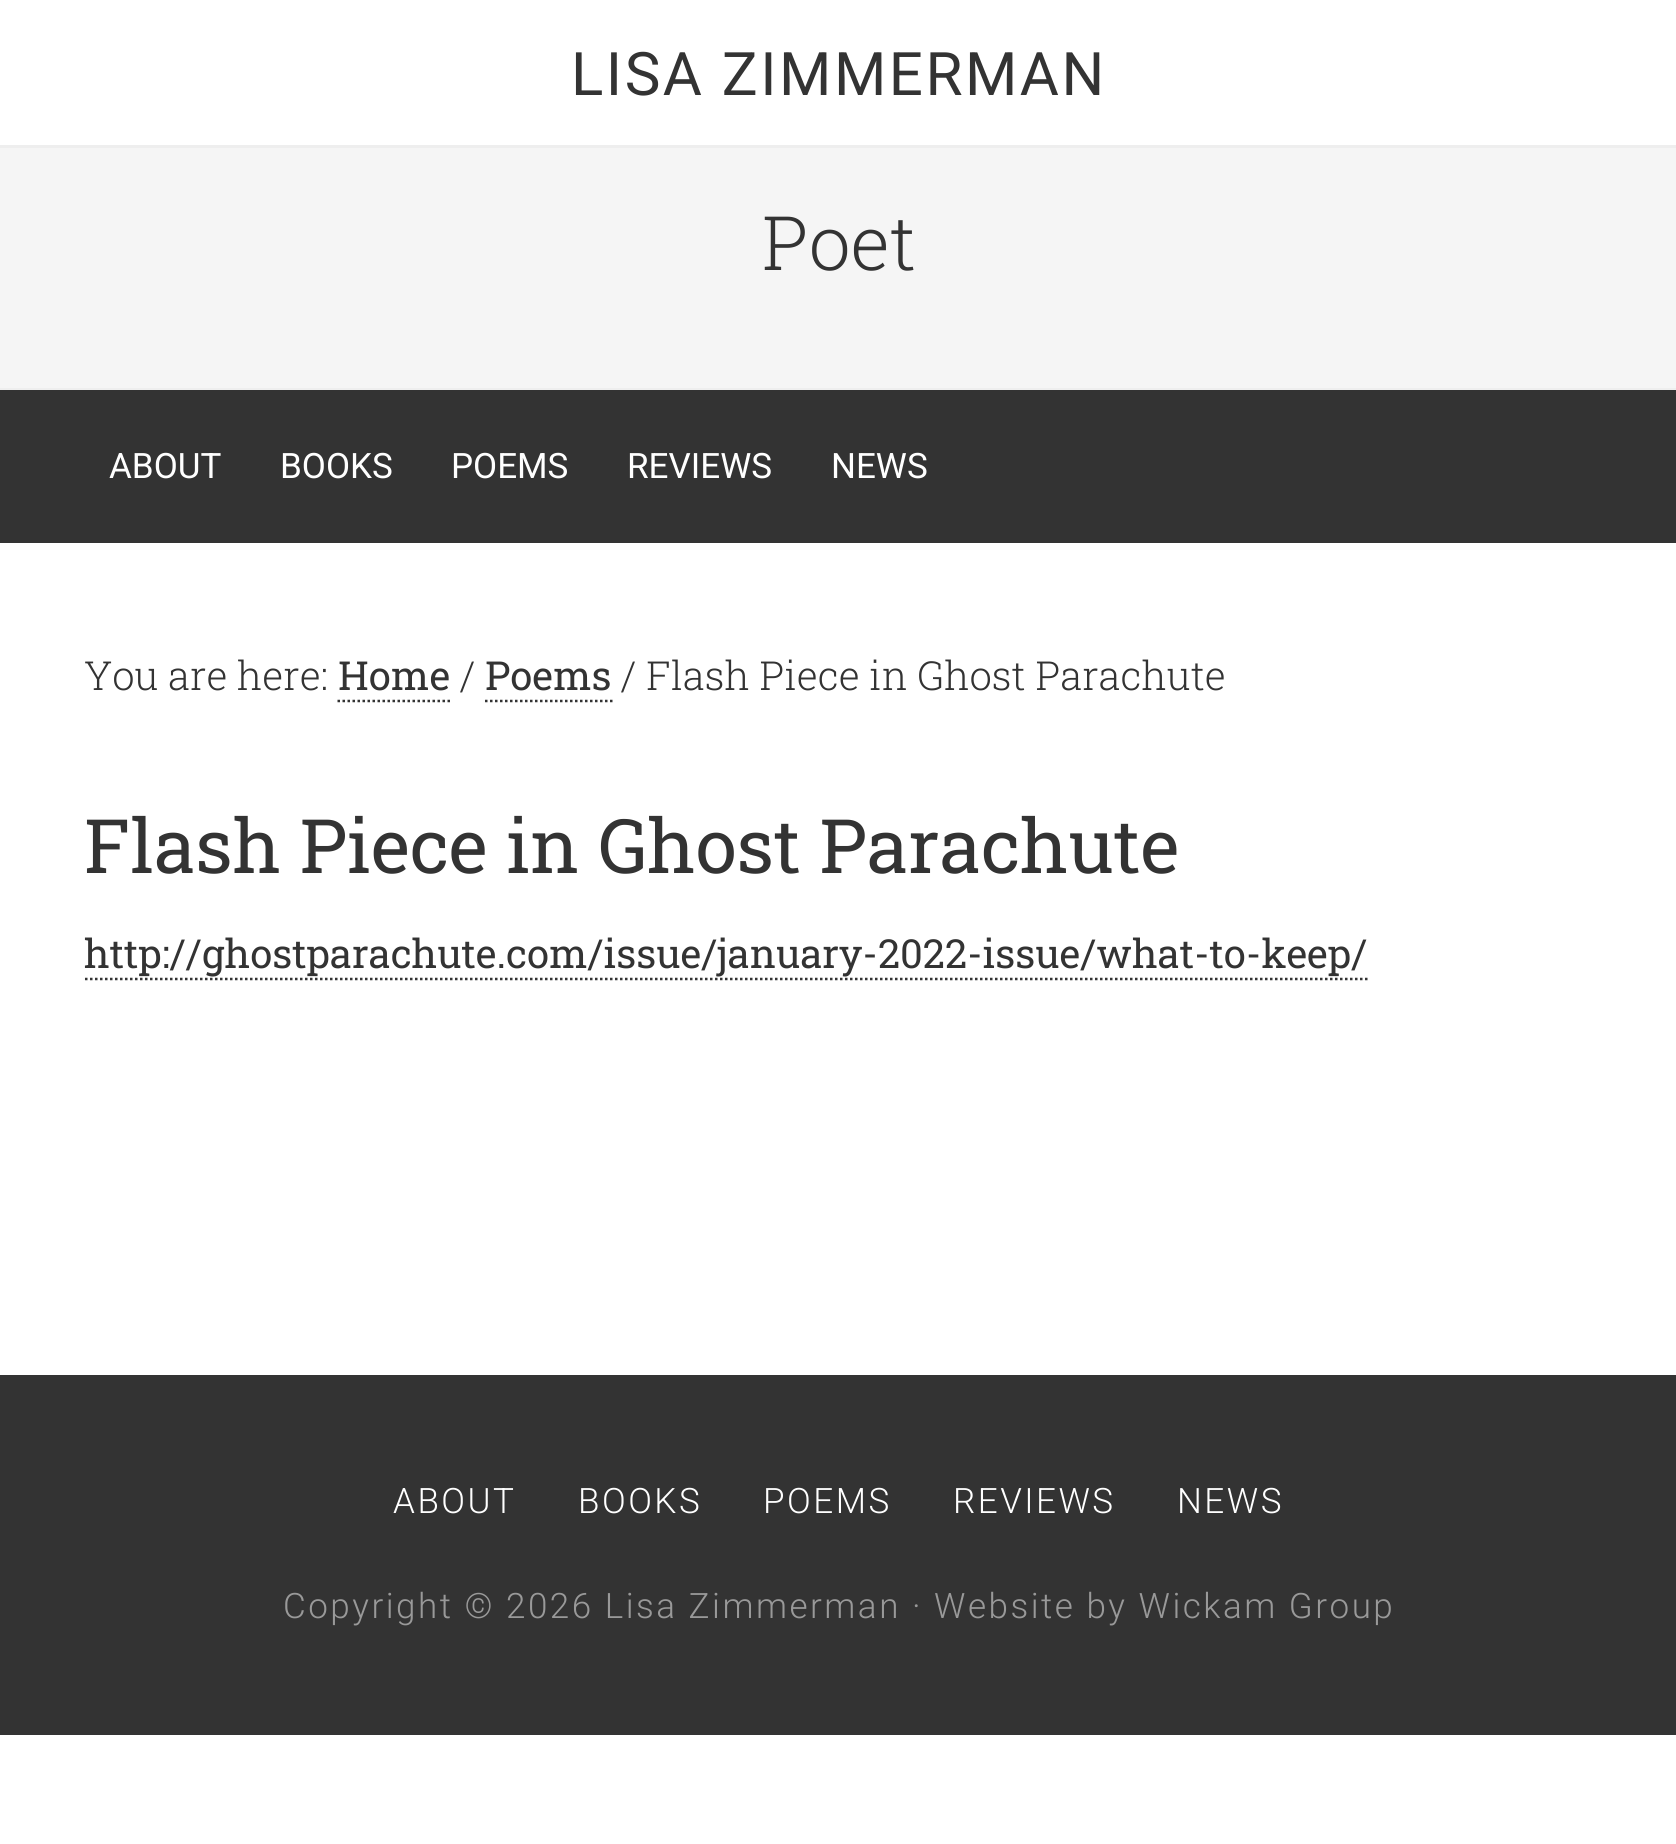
#include <cairo.h>
#include <math.h>
#include <stddef.h>

typedef struct { double x, y; const char *s; } line_t;

static void ink(cairo_t *ctx, unsigned color) {
    cairo_set_source_rgb(ctx, (color >> 16) / 255.0, (color >> 8 & 255) / 255.0, (color & 255) / 255.0);
}

static void write_spaced(cairo_t *ctx, double x, double y, const char *s, double letter, double word) {
    cairo_move_to(ctx, x, y);
    while (*s) {
        char ch[5] = {0};
        int n = 0;
        do ch[n++] = *s++; while ((*s & 0xC0) == 0x80);
        cairo_show_text(ctx, ch);
        cairo_rel_move_to(ctx, letter + word * (*ch == ' '), 0);
    }
}

int main(void) {
    cairo_surface_t *surface = cairo_image_surface_create(CAIRO_FORMAT_RGB24, 1676, 1844);
    cairo_t *ctx = cairo_create(surface);
    cairo_font_options_t *options = cairo_font_options_create();
    cairo_font_options_set_hint_metrics(options, CAIRO_HINT_METRICS_OFF);
    cairo_font_options_set_hint_style(options, CAIRO_HINT_STYLE_NONE);
    cairo_set_font_options(ctx, options);
    cairo_set_miter_limit(ctx, 4);
    ink(ctx, 0xFFFFFF);
    cairo_paint(ctx);
    ink(ctx, 0xEEEEEE);
    cairo_rectangle(ctx, 0, 145, 1676, 3);
    cairo_fill(ctx);
    cairo_select_font_face(ctx, "Roboto", CAIRO_FONT_SLANT_NORMAL, CAIRO_FONT_WEIGHT_NORMAL);
    cairo_set_font_size(ctx, 60);
    ink(ctx, 0x333333);
    write_spaced(ctx, 571, 95, "LISA ZIMMERMAN", 2.5, 0);
    ink(ctx, 0xF5F5F5);
    cairo_rectangle(ctx, 0, 148, 1676, 240);
    cairo_fill(ctx);
    ink(ctx, 0xEEEEEE);
    cairo_rectangle(ctx, 0, 388, 1676, 2);
    cairo_fill(ctx);
    cairo_select_font_face(ctx, "Roboto Slab Light", CAIRO_FONT_SLANT_NORMAL, CAIRO_FONT_WEIGHT_NORMAL);
    cairo_set_font_size(ctx, 75);
    ink(ctx, 0x333333);
    cairo_move_to(ctx, 762, 270);
    cairo_show_text(ctx, "Poet");
    cairo_rectangle(ctx, 0, 390, 1676, 153);
    cairo_fill(ctx);
    cairo_select_font_face(ctx, "Roboto", CAIRO_FONT_SLANT_NORMAL, CAIRO_FONT_WEIGHT_NORMAL);
    cairo_set_font_size(ctx, 35);
    ink(ctx, 0xFFFFFF);
    {
        static const line_t items[] = {
            {109, 478, "ABOUT"},
            {280, 478, "BOOKS"},
            {451, 478, "POEMS"},
            {627, 478, "REVIEWS"},
            {831, 478, "NEWS"},
        };
        for (size_t i = 0; i < sizeof items / sizeof *items; i++) {
            cairo_move_to(ctx, items[i].x, items[i].y);
            cairo_show_text(ctx, items[i].s);
        }
    }
    cairo_select_font_face(ctx, "Roboto Slab Light", CAIRO_FONT_SLANT_NORMAL, CAIRO_FONT_WEIGHT_NORMAL);
    cairo_set_font_size(ctx, 40);
    ink(ctx, 0x333333);
    cairo_move_to(ctx, 84, 690);
    cairo_show_text(ctx, "You are here:");
    cairo_select_font_face(ctx, "Roboto Slab", CAIRO_FONT_SLANT_NORMAL, CAIRO_FONT_WEIGHT_NORMAL);
    cairo_move_to(ctx, 338, 690);
    cairo_show_text(ctx, "Home");
    cairo_new_path(ctx);
    cairo_move_to(ctx, 337.5, 701);
    cairo_line_to(ctx, 450, 701);
    cairo_set_line_width(ctx, 2.5);
    cairo_set_dash(ctx, (double[]){2.5, 2.5}, 2, 0);
    cairo_stroke(ctx);
    cairo_select_font_face(ctx, "Roboto Slab Light", CAIRO_FONT_SLANT_NORMAL, CAIRO_FONT_WEIGHT_NORMAL);
    cairo_move_to(ctx, 460, 690);
    cairo_show_text(ctx, "/");
    cairo_select_font_face(ctx, "Roboto Slab", CAIRO_FONT_SLANT_NORMAL, CAIRO_FONT_WEIGHT_NORMAL);
    cairo_move_to(ctx, 485, 690);
    cairo_show_text(ctx, "Poems");
    cairo_new_path(ctx);
    cairo_move_to(ctx, 485, 701);
    cairo_line_to(ctx, 612.5, 701);
    cairo_stroke(ctx);
    cairo_select_font_face(ctx, "Roboto Slab Light", CAIRO_FONT_SLANT_NORMAL, CAIRO_FONT_WEIGHT_NORMAL);
    cairo_move_to(ctx, 621, 690);
    cairo_show_text(ctx, "/ Flash Piece in Ghost Parachute");
    cairo_select_font_face(ctx, "Roboto Slab", CAIRO_FONT_SLANT_NORMAL, CAIRO_FONT_WEIGHT_NORMAL);
    cairo_set_font_size(ctx, 75);
    cairo_move_to(ctx, 84, 873);
    cairo_show_text(ctx, "Flash Piece in Ghost Parachute");
    cairo_set_font_size(ctx, 40);
    cairo_move_to(ctx, 84, 968);
    cairo_show_text(ctx, "http://ghostparachute.com/issue/january-2022-issue/what-to-keep/");
    cairo_new_path(ctx);
    cairo_move_to(ctx, 85, 979);
    cairo_line_to(ctx, 1367.5, 979);
    cairo_stroke(ctx);
    cairo_rectangle(ctx, 0, 1375, 1676, 360);
    cairo_fill(ctx);
    cairo_select_font_face(ctx, "Roboto Light", CAIRO_FONT_SLANT_NORMAL, CAIRO_FONT_WEIGHT_NORMAL);
    cairo_set_font_size(ctx, 35);
    ink(ctx, 0xFFFFFF);
    {
        static const line_t items[] = {
            {393, 1513, "ABOUT"},
            {578, 1513, "BOOKS"},
            {763, 1513, "POEMS"},
            {953, 1513, "REVIEWS"},
            {1177, 1513, "NEWS"},
        };
        for (size_t i = 0; i < sizeof items / sizeof *items; i++) {
            write_spaced(ctx, items[i].x, items[i].y, items[i].s, 2.5, 0);
        }
    }
    ink(ctx, 0x999999);
    write_spaced(ctx, 283, 1618, "Copyright © 2026 Lisa Zimmerman · Website by Wickam Group", 2.5, 0);
    cairo_surface_write_to_png(surface, "image.png");
    cairo_font_options_destroy(options);
    cairo_destroy(ctx);
    cairo_surface_destroy(surface);
    return 0;
}
